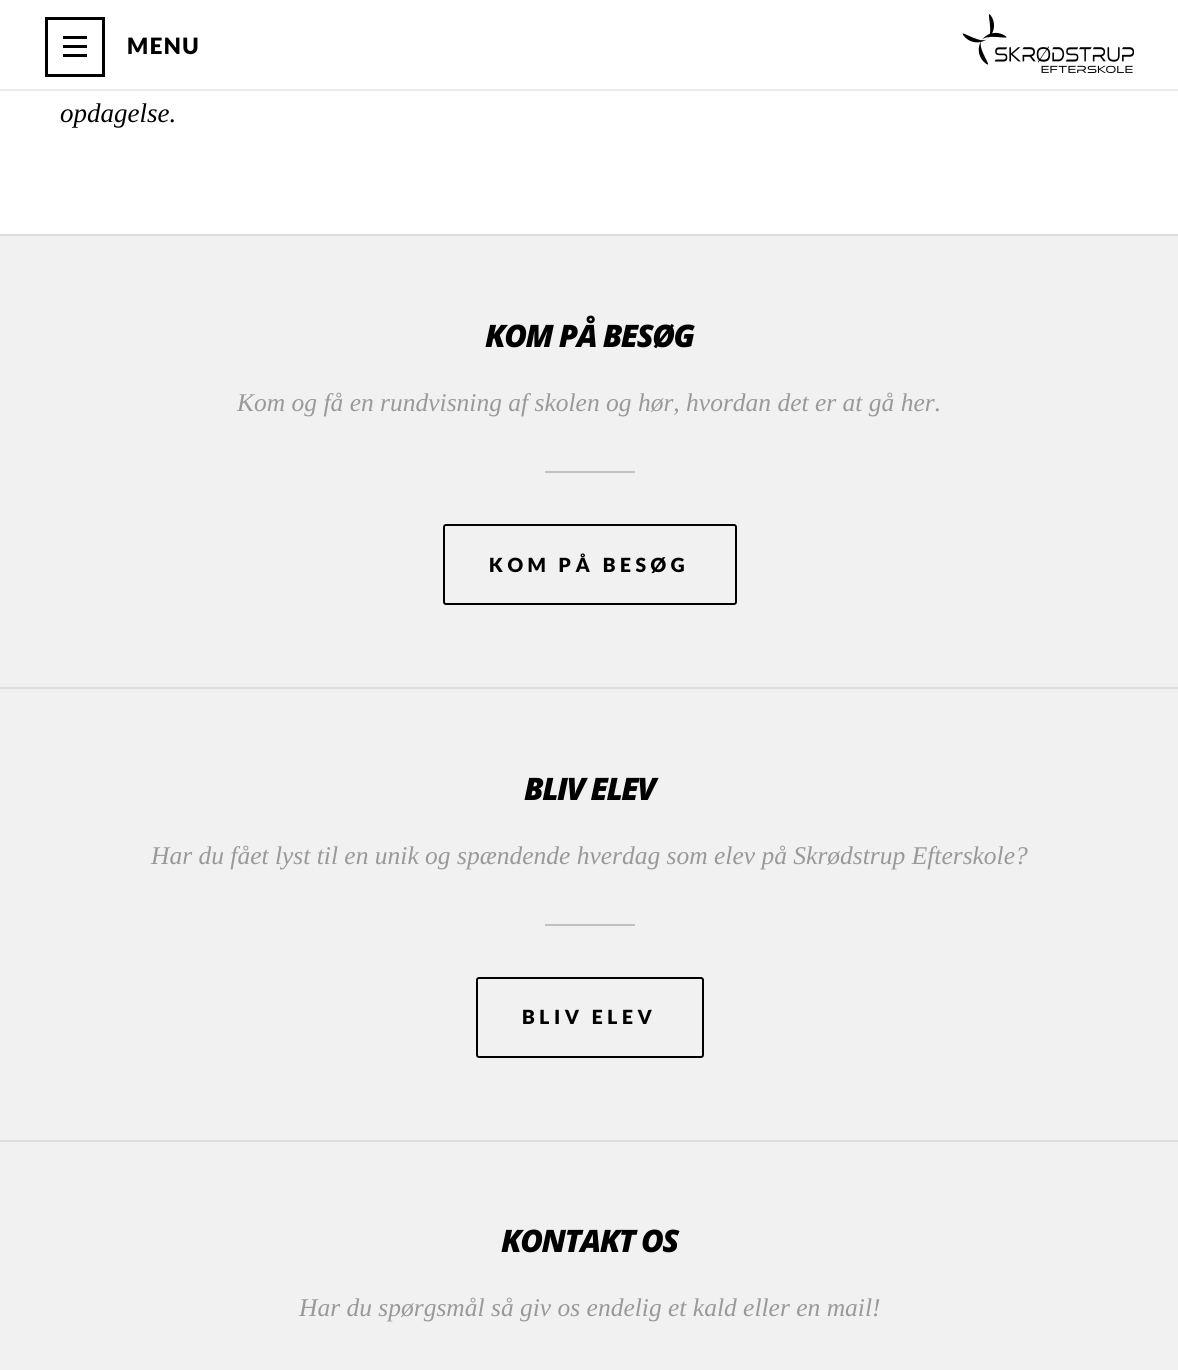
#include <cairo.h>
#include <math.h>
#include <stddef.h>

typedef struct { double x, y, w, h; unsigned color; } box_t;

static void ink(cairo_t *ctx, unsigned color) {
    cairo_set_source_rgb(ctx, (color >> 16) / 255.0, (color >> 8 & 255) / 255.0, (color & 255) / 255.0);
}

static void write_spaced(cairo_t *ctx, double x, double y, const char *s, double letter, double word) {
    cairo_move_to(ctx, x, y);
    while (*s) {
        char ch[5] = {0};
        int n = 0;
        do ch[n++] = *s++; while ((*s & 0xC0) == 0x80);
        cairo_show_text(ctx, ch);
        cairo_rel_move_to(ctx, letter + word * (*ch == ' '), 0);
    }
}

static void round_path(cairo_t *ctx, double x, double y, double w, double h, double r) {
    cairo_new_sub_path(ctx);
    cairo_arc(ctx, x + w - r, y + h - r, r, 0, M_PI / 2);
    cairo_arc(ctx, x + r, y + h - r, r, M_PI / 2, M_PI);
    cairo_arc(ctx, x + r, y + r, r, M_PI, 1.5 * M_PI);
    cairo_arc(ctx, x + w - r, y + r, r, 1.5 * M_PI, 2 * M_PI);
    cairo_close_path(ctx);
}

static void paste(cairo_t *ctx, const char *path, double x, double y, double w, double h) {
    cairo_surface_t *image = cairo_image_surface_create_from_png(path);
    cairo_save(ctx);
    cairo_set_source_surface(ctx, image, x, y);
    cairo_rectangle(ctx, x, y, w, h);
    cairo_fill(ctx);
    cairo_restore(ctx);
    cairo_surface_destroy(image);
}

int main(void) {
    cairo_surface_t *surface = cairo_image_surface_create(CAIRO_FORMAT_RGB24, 1178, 1370);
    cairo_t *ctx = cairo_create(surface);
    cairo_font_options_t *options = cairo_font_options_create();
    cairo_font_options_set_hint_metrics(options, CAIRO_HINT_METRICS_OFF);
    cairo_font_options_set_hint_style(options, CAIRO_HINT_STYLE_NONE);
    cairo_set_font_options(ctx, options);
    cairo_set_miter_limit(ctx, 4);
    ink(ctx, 0xFFFFFF);
    cairo_paint(ctx);
    ink(ctx, 0xEAEAEA);
    cairo_rectangle(ctx, 0, 89, 1178, 2);
    cairo_fill(ctx);
    cairo_rectangle(ctx, 46.5, 18.5, 57, 57);
    ink(ctx, 0x000000);
    cairo_set_line_width(ctx, 3);
    cairo_stroke(ctx);
    {
        static const box_t items[] = {
            {63, 45, 24, 3, 0x000000},
            {63, 36, 24, 3, 0x000000},
            {63, 54, 24, 3, 0x000000},
        };
        for (size_t i = 0; i < sizeof items / sizeof *items; i++) {
            ink(ctx, items[i].color);
            cairo_rectangle(ctx, items[i].x, items[i].y, items[i].w, items[i].h);
            cairo_fill(ctx);
        }
    }
    cairo_select_font_face(ctx, "Lato Black", CAIRO_FONT_SLANT_NORMAL, CAIRO_FONT_WEIGHT_NORMAL);
    cairo_set_font_size(ctx, 22.5);
    write_spaced(ctx, 127, 54, "MENU", 1.5, 0);
    paste(ctx, "media/1.png", 962, 14, 172, 59);
    cairo_select_font_face(ctx, "Liberation Serif", CAIRO_FONT_SLANT_ITALIC, CAIRO_FONT_WEIGHT_NORMAL);
    cairo_set_font_size(ctx, 27);
    cairo_move_to(ctx, 60, 122);
    cairo_show_text(ctx, "opdagelse.");
    {
        static const box_t items[] = {
            {0, 236, 1178, 1134, 0xF2F1F1},
            {0, 234, 1178, 2, 0xDDDDDD},
            {0, 687, 1178, 2, 0xDDDDDD},
        };
        for (size_t i = 0; i < sizeof items / sizeof *items; i++) {
            ink(ctx, items[i].color);
            cairo_rectangle(ctx, items[i].x, items[i].y, items[i].w, items[i].h);
            cairo_fill(ctx);
        }
    }
    cairo_select_font_face(ctx, "Open Sans ExtraBold", CAIRO_FONT_SLANT_ITALIC, CAIRO_FONT_WEIGHT_NORMAL);
    cairo_set_font_size(ctx, 31);
    ink(ctx, 0x000000);
    write_spaced(ctx, 485, 347, "KOM PÅ BESØG", -1.5, 0);
    cairo_select_font_face(ctx, "Liberation Serif", CAIRO_FONT_SLANT_ITALIC, CAIRO_FONT_WEIGHT_NORMAL);
    cairo_set_font_size(ctx, 25.5);
    ink(ctx, 0x999999);
    cairo_move_to(ctx, 237, 411);
    cairo_show_text(ctx, "Kom og få en rundvisning af skolen og hør, hvordan det er at gå her.");
    ink(ctx, 0xC1C1C1);
    cairo_rectangle(ctx, 545, 471, 90, 2);
    cairo_fill(ctx);
    round_path(ctx, 444, 525, 292, 79, 2);
    ink(ctx, 0x000000);
    cairo_set_line_width(ctx, 2);
    cairo_stroke(ctx);
    cairo_select_font_face(ctx, "Lato Black", CAIRO_FONT_SLANT_NORMAL, CAIRO_FONT_WEIGHT_NORMAL);
    cairo_set_font_size(ctx, 19.5);
    write_spaced(ctx, 489, 572, "KOM PÅ BESØG", 4.5, 0);
    ink(ctx, 0xDDDDDD);
    cairo_rectangle(ctx, 0, 1140, 1178, 2);
    cairo_fill(ctx);
    cairo_select_font_face(ctx, "Open Sans ExtraBold", CAIRO_FONT_SLANT_ITALIC, CAIRO_FONT_WEIGHT_NORMAL);
    cairo_set_font_size(ctx, 31);
    ink(ctx, 0x000000);
    write_spaced(ctx, 524, 800, "BLIV ELEV", -1.5, 0);
    cairo_select_font_face(ctx, "Liberation Serif", CAIRO_FONT_SLANT_ITALIC, CAIRO_FONT_WEIGHT_NORMAL);
    cairo_set_font_size(ctx, 25.5);
    ink(ctx, 0x999999);
    cairo_move_to(ctx, 151, 864);
    cairo_show_text(ctx, "Har du fået lyst til en unik og spændende hverdag som elev på Skrødstrup Efterskole?");
    ink(ctx, 0xC1C1C1);
    cairo_rectangle(ctx, 545, 924, 90, 2);
    cairo_fill(ctx);
    round_path(ctx, 477, 978, 226, 79, 2);
    ink(ctx, 0x000000);
    cairo_stroke(ctx);
    cairo_select_font_face(ctx, "Lato Black", CAIRO_FONT_SLANT_NORMAL, CAIRO_FONT_WEIGHT_NORMAL);
    cairo_set_font_size(ctx, 19.5);
    write_spaced(ctx, 522, 1024, "BLIV ELEV", 4.5, 0);
    cairo_select_font_face(ctx, "Open Sans ExtraBold", CAIRO_FONT_SLANT_ITALIC, CAIRO_FONT_WEIGHT_NORMAL);
    cairo_set_font_size(ctx, 31);
    write_spaced(ctx, 501, 1252, "KONTAKT OS", -1.5, 0);
    cairo_select_font_face(ctx, "Liberation Serif", CAIRO_FONT_SLANT_ITALIC, CAIRO_FONT_WEIGHT_NORMAL);
    cairo_set_font_size(ctx, 25.5);
    ink(ctx, 0x999999);
    cairo_move_to(ctx, 299, 1316);
    cairo_show_text(ctx, "Har du spørgsmål så giv os endelig et kald eller en mail!");
    cairo_surface_write_to_png(surface, "image.png");
    cairo_font_options_destroy(options);
    cairo_destroy(ctx);
    cairo_surface_destroy(surface);
    return 0;
}
